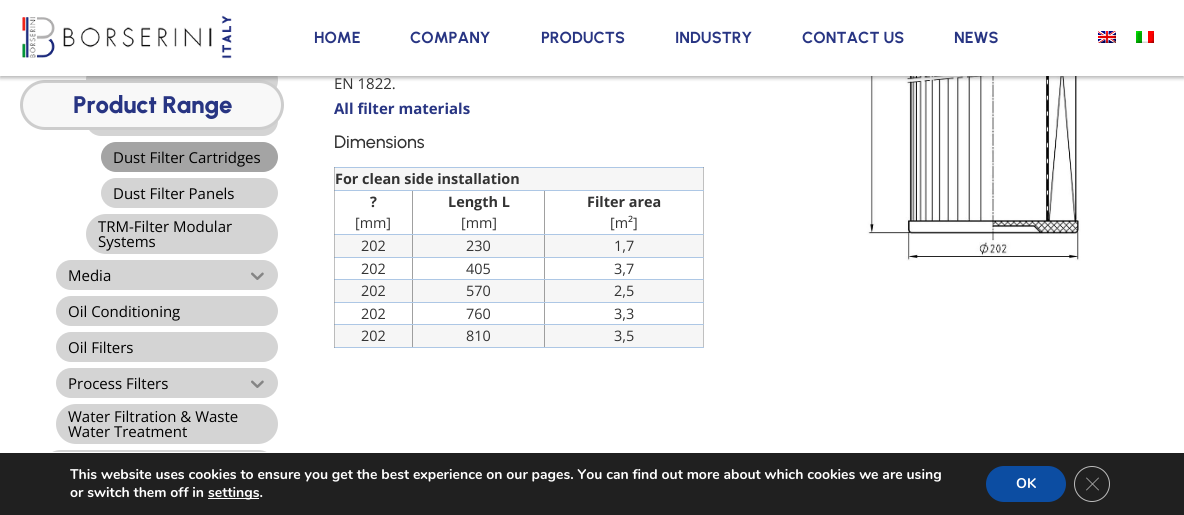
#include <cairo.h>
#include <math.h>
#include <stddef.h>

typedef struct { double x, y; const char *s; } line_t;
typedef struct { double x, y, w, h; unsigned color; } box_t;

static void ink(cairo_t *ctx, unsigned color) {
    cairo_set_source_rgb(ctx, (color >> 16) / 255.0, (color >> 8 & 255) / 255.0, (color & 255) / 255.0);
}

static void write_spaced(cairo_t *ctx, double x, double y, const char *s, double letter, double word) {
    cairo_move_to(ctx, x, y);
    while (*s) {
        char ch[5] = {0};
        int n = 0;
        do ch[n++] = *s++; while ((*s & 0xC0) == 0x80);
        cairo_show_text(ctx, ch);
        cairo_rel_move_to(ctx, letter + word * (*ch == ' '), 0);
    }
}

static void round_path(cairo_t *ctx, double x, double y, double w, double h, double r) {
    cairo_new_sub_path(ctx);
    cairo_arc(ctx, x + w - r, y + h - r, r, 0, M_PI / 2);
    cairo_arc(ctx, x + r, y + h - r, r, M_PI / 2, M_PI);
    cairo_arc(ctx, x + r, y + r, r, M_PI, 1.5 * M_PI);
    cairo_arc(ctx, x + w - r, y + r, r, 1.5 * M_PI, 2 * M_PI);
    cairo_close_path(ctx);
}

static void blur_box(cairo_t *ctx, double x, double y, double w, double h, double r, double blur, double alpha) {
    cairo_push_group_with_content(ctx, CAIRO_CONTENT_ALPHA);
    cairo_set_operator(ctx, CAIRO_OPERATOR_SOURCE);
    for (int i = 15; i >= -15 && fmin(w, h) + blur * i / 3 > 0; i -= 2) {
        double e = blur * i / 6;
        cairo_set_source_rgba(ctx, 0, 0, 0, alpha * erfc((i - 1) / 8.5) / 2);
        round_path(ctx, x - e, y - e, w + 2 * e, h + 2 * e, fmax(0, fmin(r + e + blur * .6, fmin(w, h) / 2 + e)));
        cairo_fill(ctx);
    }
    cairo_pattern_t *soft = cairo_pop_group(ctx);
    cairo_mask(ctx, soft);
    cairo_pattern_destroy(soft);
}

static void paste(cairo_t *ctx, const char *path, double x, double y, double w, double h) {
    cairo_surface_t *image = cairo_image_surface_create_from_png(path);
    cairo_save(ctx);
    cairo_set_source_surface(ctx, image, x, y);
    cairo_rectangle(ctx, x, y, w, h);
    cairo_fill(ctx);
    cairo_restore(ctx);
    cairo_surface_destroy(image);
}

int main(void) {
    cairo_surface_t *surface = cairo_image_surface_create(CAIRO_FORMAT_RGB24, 1184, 515);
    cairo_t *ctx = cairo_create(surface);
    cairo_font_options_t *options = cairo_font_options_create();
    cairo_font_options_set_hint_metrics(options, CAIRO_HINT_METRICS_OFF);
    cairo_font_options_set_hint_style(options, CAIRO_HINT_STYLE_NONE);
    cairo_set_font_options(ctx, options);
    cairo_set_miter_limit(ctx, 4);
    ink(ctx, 0xFFFFFF);
    cairo_paint(ctx);
    {
        static const box_t items[] = {
            {703, 167, 1, 181, 0xC0C0C0},
            {334, 190, 1, 45, 0xC0C0C0},
            {412, 190, 1, 45, 0xA0A0A0},
            {544, 190, 1, 45, 0xA0A0A0},
            {334, 257, 1, 23, 0xC0C0C0},
            {412, 257, 1, 23, 0xA0A0A0},
            {544, 257, 1, 23, 0xA0A0A0},
            {334, 302, 1, 23, 0xC0C0C0},
            {412, 302, 1, 23, 0xA0A0A0},
            {544, 302, 1, 23, 0xA0A0A0},
        };
        for (size_t i = 0; i < sizeof items / sizeof *items; i++) {
            ink(ctx, items[i].color);
            cairo_rectangle(ctx, items[i].x, items[i].y, items[i].w, items[i].h);
            cairo_fill(ctx);
        }
    }
    ink(ctx, 0xD4D4D4);
    round_path(ctx, 86, 60, 192, 40, 20);
    cairo_fill(ctx);
    round_path(ctx, 86, 106, 192, 30, 15);
    cairo_fill(ctx);
    ink(ctx, 0xF8F8F8);
    round_path(ctx, 21.5, 81.5, 261, 47, 23.5);
    cairo_fill_preserve(ctx);
    ink(ctx, 0xCDCDCD);
    cairo_set_line_width(ctx, 3);
    cairo_stroke(ctx);
    paste(ctx, "media/5.png", 859, 76, 222, 185);
    ink(ctx, 0x000000);
    blur_box(ctx, 0, 2, 1184, 76, 0, 2, 0.3);
    ink(ctx, 0xFFFFFF);
    cairo_rectangle(ctx, 0, 0, 1184, 76);
    cairo_fill(ctx);
    paste(ctx, "media/1.png", 22, 15, 210, 44);
    cairo_select_font_face(ctx, "Urbanist", CAIRO_FONT_SLANT_NORMAL, CAIRO_FONT_WEIGHT_BOLD);
    cairo_set_font_size(ctx, 16);
    ink(ctx, 0x283583);
    {
        static const line_t items[] = {
            {314, 43, "HOME"},
            {410, 43, "COMPANY"},
            {541, 43, "PRODUCTS"},
            {675, 43, "INDUSTRY"},
            {802, 43, "CONTACT US"},
            {954, 43, "NEWS"},
        };
        for (size_t i = 0; i < sizeof items / sizeof *items; i++) {
            cairo_move_to(ctx, items[i].x, items[i].y);
            cairo_show_text(ctx, items[i].s);
        }
    }
    paste(ctx, "media/2.png", 1098, 31, 18, 12);
    paste(ctx, "media/3.png", 1136, 31, 18, 12);
    cairo_select_font_face(ctx, "Urbanist ExtraBold", CAIRO_FONT_SLANT_NORMAL, CAIRO_FONT_WEIGHT_NORMAL);
    cairo_set_font_size(ctx, 24);
    write_spaced(ctx, 73, 113, "Product Range", -0.25, 0);
    ink(ctx, 0xA4A4A4);
    round_path(ctx, 101, 142, 177, 30, 15);
    cairo_fill(ctx);
    cairo_select_font_face(ctx, "Open Sans", CAIRO_FONT_SLANT_NORMAL, CAIRO_FONT_WEIGHT_NORMAL);
    cairo_set_font_size(ctx, 15);
    ink(ctx, 0x000000);
    cairo_move_to(ctx, 113, 163);
    cairo_show_text(ctx, "Dust Filter Cartridges");
    ink(ctx, 0xD4D4D4);
    round_path(ctx, 101, 178, 177, 30, 15);
    cairo_fill(ctx);
    ink(ctx, 0x000000);
    cairo_move_to(ctx, 113, 199);
    cairo_show_text(ctx, "Dust Filter Panels");
    ink(ctx, 0xD4D4D4);
    round_path(ctx, 86, 214, 192, 40, 20);
    cairo_fill(ctx);
    ink(ctx, 0x000000);
    cairo_move_to(ctx, 98, 232);
    cairo_show_text(ctx, "TRM-Filter Modular");
    cairo_move_to(ctx, 98, 247);
    cairo_show_text(ctx, "Systems");
    ink(ctx, 0xD4D4D4);
    round_path(ctx, 56, 260, 222, 30, 15);
    cairo_fill(ctx);
    ink(ctx, 0x000000);
    cairo_move_to(ctx, 68, 281);
    cairo_show_text(ctx, "Media");
    paste(ctx, "media/4.png", 251, 272, 13, 8);
    ink(ctx, 0xD4D4D4);
    round_path(ctx, 56, 296, 222, 30, 15);
    cairo_fill(ctx);
    ink(ctx, 0x000000);
    cairo_move_to(ctx, 68, 317);
    cairo_show_text(ctx, "Oil Conditioning");
    ink(ctx, 0xD4D4D4);
    round_path(ctx, 56, 332, 222, 30, 15);
    cairo_fill(ctx);
    ink(ctx, 0x000000);
    cairo_move_to(ctx, 68, 353);
    cairo_show_text(ctx, "Oil Filters");
    ink(ctx, 0xD4D4D4);
    round_path(ctx, 56, 368, 222, 30, 15);
    cairo_fill(ctx);
    ink(ctx, 0x000000);
    cairo_move_to(ctx, 68, 389);
    cairo_show_text(ctx, "Process Filters");
    paste(ctx, "media/4.png", 251, 380, 13, 8);
    ink(ctx, 0xD4D4D4);
    round_path(ctx, 56, 404, 222, 40, 20);
    cairo_fill(ctx);
    ink(ctx, 0x000000);
    cairo_move_to(ctx, 68, 422);
    cairo_show_text(ctx, "Water Filtration & Waste");
    cairo_move_to(ctx, 68, 437);
    cairo_show_text(ctx, "Water Treatment");
    ink(ctx, 0xD4D4D4);
    round_path(ctx, 41, 450, 237, 40, 20);
    cairo_fill(ctx);
    ink(ctx, 0x333333);
    cairo_move_to(ctx, 334, 89);
    cairo_show_text(ctx, "EN 1822.");
    cairo_select_font_face(ctx, "Open Sans", CAIRO_FONT_SLANT_NORMAL, CAIRO_FONT_WEIGHT_BOLD);
    ink(ctx, 0x283583);
    cairo_move_to(ctx, 334, 114);
    cairo_show_text(ctx, "All filter materials");
    cairo_select_font_face(ctx, "Urbanist Medium", CAIRO_FONT_SLANT_NORMAL, CAIRO_FONT_WEIGHT_NORMAL);
    cairo_set_font_size(ctx, 18);
    ink(ctx, 0x333333);
    cairo_move_to(ctx, 334, 148);
    cairo_show_text(ctx, "Dimensions");
    {
        static const box_t items[] = {
            {335, 168, 368, 22, 0xF6F6F6},
            {334, 168, 1, 22, 0xBBBBBB},
            {334, 167, 370, 1, 0xADC7E5},
            {334, 167, 1, 1, 0x97A4B3},
            {703, 167, 1, 1, 0x97A4B3},
            {334, 190, 370, 1, 0xADC7E5},
            {334, 190, 1, 1, 0x97A4B3},
        };
        for (size_t i = 0; i < sizeof items / sizeof *items; i++) {
            ink(ctx, items[i].color);
            cairo_rectangle(ctx, items[i].x, items[i].y, items[i].w, items[i].h);
            cairo_fill(ctx);
        }
    }
    cairo_select_font_face(ctx, "Open Sans", CAIRO_FONT_SLANT_NORMAL, CAIRO_FONT_WEIGHT_BOLD);
    cairo_set_font_size(ctx, 14.4);
    ink(ctx, 0x333333);
    cairo_move_to(ctx, 335, 184);
    cairo_show_text(ctx, "For clean side installation");
    ink(ctx, 0xADC7E5);
    cairo_rectangle(ctx, 334, 234, 370, 1);
    cairo_fill(ctx);
    ink(ctx, 0x97A4B3);
    cairo_rectangle(ctx, 334, 234, 1, 1);
    cairo_fill(ctx);
    ink(ctx, 0x333333);
    cairo_move_to(ctx, 370, 207);
    cairo_show_text(ctx, "?");
    cairo_select_font_face(ctx, "Open Sans", CAIRO_FONT_SLANT_NORMAL, CAIRO_FONT_WEIGHT_NORMAL);
    cairo_move_to(ctx, 355, 228);
    cairo_show_text(ctx, "[mm]");
    cairo_select_font_face(ctx, "Open Sans", CAIRO_FONT_SLANT_NORMAL, CAIRO_FONT_WEIGHT_BOLD);
    cairo_move_to(ctx, 448, 207);
    cairo_show_text(ctx, "Length L");
    cairo_select_font_face(ctx, "Open Sans", CAIRO_FONT_SLANT_NORMAL, CAIRO_FONT_WEIGHT_NORMAL);
    cairo_move_to(ctx, 461, 228);
    cairo_show_text(ctx, "[mm]");
    cairo_select_font_face(ctx, "Open Sans", CAIRO_FONT_SLANT_NORMAL, CAIRO_FONT_WEIGHT_BOLD);
    cairo_move_to(ctx, 587, 207);
    cairo_show_text(ctx, "Filter area");
    cairo_select_font_face(ctx, "Open Sans", CAIRO_FONT_SLANT_NORMAL, CAIRO_FONT_WEIGHT_NORMAL);
    cairo_move_to(ctx, 610, 228);
    cairo_show_text(ctx, "[m²]");
    {
        static const box_t items[] = {
            {335, 235, 77, 22, 0xF6F6F6},
            {334, 235, 1, 22, 0xBBBBBB},
            {334, 257, 370, 1, 0xADC7E5},
            {334, 257, 1, 1, 0x97A4B3},
        };
        for (size_t i = 0; i < sizeof items / sizeof *items; i++) {
            ink(ctx, items[i].color);
            cairo_rectangle(ctx, items[i].x, items[i].y, items[i].w, items[i].h);
            cairo_fill(ctx);
        }
    }
    ink(ctx, 0x333333);
    cairo_move_to(ctx, 361, 251);
    cairo_show_text(ctx, "202");
    {
        static const box_t items[] = {
            {413, 235, 131, 22, 0xF6F6F6},
            {412, 235, 1, 22, 0x9E9E9E},
            {544, 235, 1, 22, 0x9E9E9E},
        };
        for (size_t i = 0; i < sizeof items / sizeof *items; i++) {
            ink(ctx, items[i].color);
            cairo_rectangle(ctx, items[i].x, items[i].y, items[i].w, items[i].h);
            cairo_fill(ctx);
        }
    }
    ink(ctx, 0x333333);
    cairo_move_to(ctx, 466, 251);
    cairo_show_text(ctx, "230");
    ink(ctx, 0xF6F6F6);
    cairo_rectangle(ctx, 545, 235, 158, 22);
    cairo_fill(ctx);
    ink(ctx, 0x333333);
    cairo_move_to(ctx, 614, 251);
    cairo_show_text(ctx, "1,7");
    ink(ctx, 0xADC7E5);
    cairo_rectangle(ctx, 334, 279, 370, 1);
    cairo_fill(ctx);
    ink(ctx, 0x97A4B3);
    cairo_rectangle(ctx, 334, 279, 1, 1);
    cairo_fill(ctx);
    ink(ctx, 0x333333);
    {
        static const line_t items[] = {
            {361, 274, "202"},
            {466, 274, "405"},
            {614, 274, "3,7"},
        };
        for (size_t i = 0; i < sizeof items / sizeof *items; i++) {
            cairo_move_to(ctx, items[i].x, items[i].y);
            cairo_show_text(ctx, items[i].s);
        }
    }
    {
        static const box_t items[] = {
            {335, 280, 77, 22, 0xF6F6F6},
            {334, 280, 1, 22, 0xBBBBBB},
            {334, 302, 370, 1, 0xADC7E5},
            {334, 302, 1, 1, 0x97A4B3},
        };
        for (size_t i = 0; i < sizeof items / sizeof *items; i++) {
            ink(ctx, items[i].color);
            cairo_rectangle(ctx, items[i].x, items[i].y, items[i].w, items[i].h);
            cairo_fill(ctx);
        }
    }
    ink(ctx, 0x333333);
    cairo_move_to(ctx, 361, 296);
    cairo_show_text(ctx, "202");
    {
        static const box_t items[] = {
            {413, 280, 131, 22, 0xF6F6F6},
            {412, 280, 1, 22, 0x9E9E9E},
            {544, 280, 1, 22, 0x9E9E9E},
        };
        for (size_t i = 0; i < sizeof items / sizeof *items; i++) {
            ink(ctx, items[i].color);
            cairo_rectangle(ctx, items[i].x, items[i].y, items[i].w, items[i].h);
            cairo_fill(ctx);
        }
    }
    ink(ctx, 0x333333);
    cairo_move_to(ctx, 466, 296);
    cairo_show_text(ctx, "570");
    ink(ctx, 0xF6F6F6);
    cairo_rectangle(ctx, 545, 280, 158, 22);
    cairo_fill(ctx);
    ink(ctx, 0x333333);
    cairo_move_to(ctx, 614, 296);
    cairo_show_text(ctx, "2,5");
    ink(ctx, 0xADC7E5);
    cairo_rectangle(ctx, 334, 324, 370, 1);
    cairo_fill(ctx);
    ink(ctx, 0x97A4B3);
    cairo_rectangle(ctx, 334, 324, 1, 1);
    cairo_fill(ctx);
    ink(ctx, 0x333333);
    {
        static const line_t items[] = {
            {361, 319, "202"},
            {466, 319, "760"},
            {614, 319, "3,3"},
        };
        for (size_t i = 0; i < sizeof items / sizeof *items; i++) {
            cairo_move_to(ctx, items[i].x, items[i].y);
            cairo_show_text(ctx, items[i].s);
        }
    }
    {
        static const box_t items[] = {
            {335, 325, 77, 22, 0xF6F6F6},
            {334, 325, 1, 23, 0xBBBBBB},
            {412, 325, 1, 23, 0x9E9E9E},
            {544, 325, 1, 23, 0x9E9E9E},
            {334, 347, 370, 1, 0xADC7E5},
            {334, 347, 1, 1, 0x97A4B3},
        };
        for (size_t i = 0; i < sizeof items / sizeof *items; i++) {
            ink(ctx, items[i].color);
            cairo_rectangle(ctx, items[i].x, items[i].y, items[i].w, items[i].h);
            cairo_fill(ctx);
        }
    }
    ink(ctx, 0x333333);
    cairo_move_to(ctx, 361, 341);
    cairo_show_text(ctx, "202");
    ink(ctx, 0xF6F6F6);
    cairo_rectangle(ctx, 413, 325, 131, 22);
    cairo_fill(ctx);
    ink(ctx, 0x333333);
    cairo_move_to(ctx, 466, 341);
    cairo_show_text(ctx, "810");
    ink(ctx, 0xF6F6F6);
    cairo_rectangle(ctx, 545, 325, 158, 22);
    cairo_fill(ctx);
    ink(ctx, 0x333333);
    cairo_move_to(ctx, 614, 341);
    cairo_show_text(ctx, "3,5");
    ink(ctx, 0x202020);
    cairo_rectangle(ctx, 0, 453, 1184, 62);
    cairo_fill(ctx);
    ink(ctx, 0xFFFFFF);
    cairo_rectangle(ctx, 50, 452, 219, 1);
    cairo_fill(ctx);
    cairo_select_font_face(ctx, "Nunito", CAIRO_FONT_SLANT_NORMAL, CAIRO_FONT_WEIGHT_BOLD);
    cairo_set_font_size(ctx, 14);
    cairo_move_to(ctx, 70, 479);
    cairo_show_text(ctx, "This website uses cookies to ensure you get the best experience on our pages. You can find out more about which cookies we are using");
    cairo_move_to(ctx, 70, 497);
    cairo_show_text(ctx, "or switch them off in");
    cairo_rectangle(ctx, 208, 498, 51, 1);
    cairo_fill(ctx);
    cairo_move_to(ctx, 208, 497);
    cairo_show_text(ctx, "settings.");
    ink(ctx, 0x0C4DA2);
    round_path(ctx, 986, 466, 80, 36, 18);
    cairo_fill(ctx);
    ink(ctx, 0xFFFFFF);
    cairo_move_to(ctx, 1016, 488);
    cairo_show_text(ctx, "OK");
    cairo_new_path(ctx);
    cairo_arc(ctx, 1092, 484, 17.5, 0, 2 * M_PI);
    ink(ctx, 0xBCBCBC);
    cairo_set_line_width(ctx, 1);
    cairo_stroke(ctx);
    cairo_new_path(ctx);
    cairo_move_to(ctx, 1098.5, 477.5);
    cairo_line_to(ctx, 1099, 478);
    cairo_line_to(ctx, 1086.5, 490.5);
    cairo_line_to(ctx, 1086, 490);
    cairo_close_path(ctx);
    cairo_fill(ctx);
    cairo_new_path(ctx);
    cairo_move_to(ctx, 1086, 478);
    cairo_line_to(ctx, 1086.5, 477.5);
    cairo_line_to(ctx, 1099, 490);
    cairo_line_to(ctx, 1098.5, 490.5);
    cairo_close_path(ctx);
    cairo_fill(ctx);
    cairo_surface_write_to_png(surface, "image.png");
    cairo_font_options_destroy(options);
    cairo_destroy(ctx);
    cairo_surface_destroy(surface);
    return 0;
}
